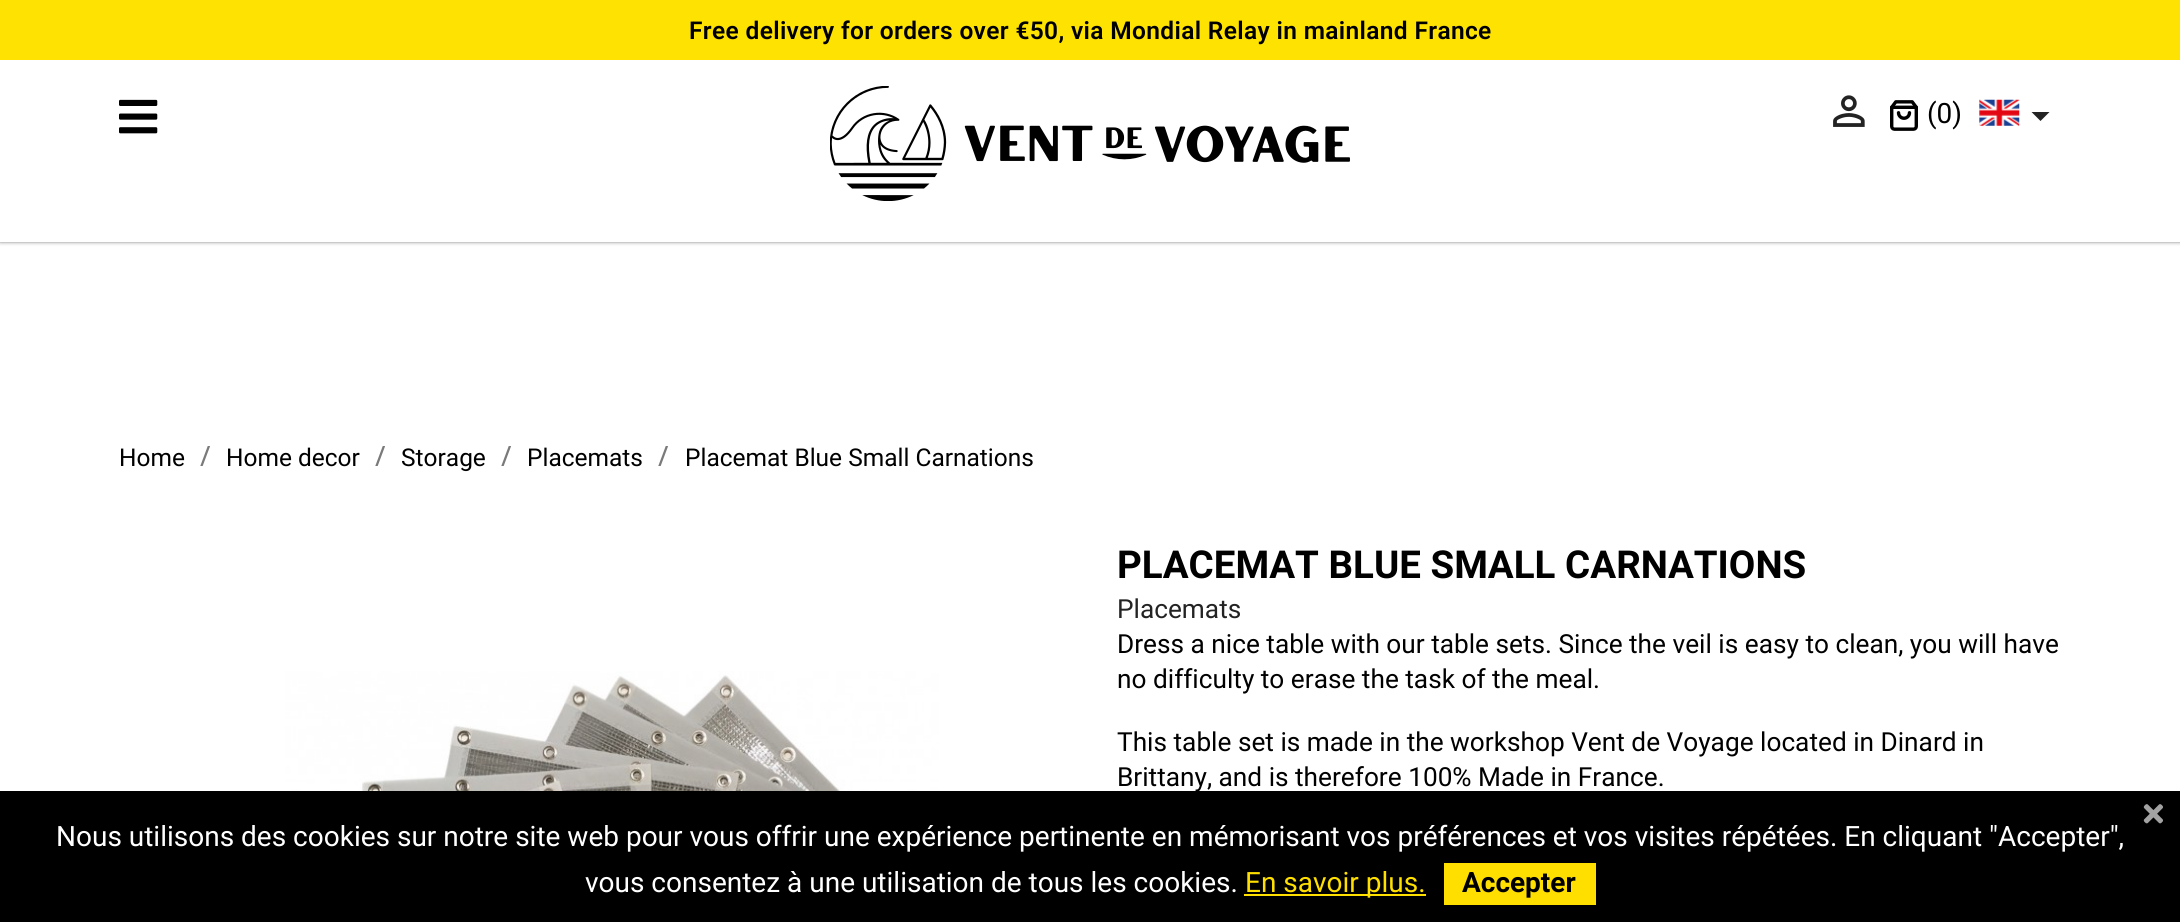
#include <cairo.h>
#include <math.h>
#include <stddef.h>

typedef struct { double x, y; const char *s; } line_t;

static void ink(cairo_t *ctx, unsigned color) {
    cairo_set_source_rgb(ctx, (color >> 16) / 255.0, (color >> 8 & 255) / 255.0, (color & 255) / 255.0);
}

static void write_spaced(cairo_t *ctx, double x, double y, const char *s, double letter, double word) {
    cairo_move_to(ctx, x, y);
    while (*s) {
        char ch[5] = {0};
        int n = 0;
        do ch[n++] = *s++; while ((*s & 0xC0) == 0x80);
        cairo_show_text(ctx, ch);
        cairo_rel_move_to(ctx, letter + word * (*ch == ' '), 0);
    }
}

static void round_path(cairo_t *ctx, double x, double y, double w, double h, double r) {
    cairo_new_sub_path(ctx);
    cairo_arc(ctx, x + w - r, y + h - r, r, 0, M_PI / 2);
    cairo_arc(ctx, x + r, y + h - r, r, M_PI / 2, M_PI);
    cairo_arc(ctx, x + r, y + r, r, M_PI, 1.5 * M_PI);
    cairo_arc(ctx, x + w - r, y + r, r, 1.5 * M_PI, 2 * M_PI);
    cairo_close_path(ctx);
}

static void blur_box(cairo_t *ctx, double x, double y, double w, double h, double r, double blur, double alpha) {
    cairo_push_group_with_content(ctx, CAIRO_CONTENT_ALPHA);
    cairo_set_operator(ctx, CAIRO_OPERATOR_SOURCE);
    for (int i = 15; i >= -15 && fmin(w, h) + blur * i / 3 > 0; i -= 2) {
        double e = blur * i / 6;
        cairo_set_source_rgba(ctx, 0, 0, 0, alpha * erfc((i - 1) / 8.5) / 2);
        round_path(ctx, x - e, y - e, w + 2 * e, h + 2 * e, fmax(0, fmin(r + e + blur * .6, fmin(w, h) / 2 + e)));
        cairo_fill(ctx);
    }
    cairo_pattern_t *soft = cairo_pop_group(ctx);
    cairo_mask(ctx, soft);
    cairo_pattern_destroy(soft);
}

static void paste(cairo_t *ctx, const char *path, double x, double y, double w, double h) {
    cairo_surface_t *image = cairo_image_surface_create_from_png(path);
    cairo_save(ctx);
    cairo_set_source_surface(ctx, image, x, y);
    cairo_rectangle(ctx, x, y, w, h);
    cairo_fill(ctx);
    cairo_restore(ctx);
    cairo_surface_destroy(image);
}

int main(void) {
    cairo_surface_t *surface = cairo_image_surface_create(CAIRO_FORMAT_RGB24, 2180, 922);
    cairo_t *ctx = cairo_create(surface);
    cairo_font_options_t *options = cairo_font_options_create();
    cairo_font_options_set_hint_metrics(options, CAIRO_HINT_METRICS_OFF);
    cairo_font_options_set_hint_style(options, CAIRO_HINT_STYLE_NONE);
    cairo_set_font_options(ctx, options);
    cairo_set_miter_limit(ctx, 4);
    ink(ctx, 0xFFFFFF);
    cairo_paint(ctx);
    ink(ctx, 0x808080);
    blur_box(ctx, 0, 0, 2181, 242, 0, 2, 1);
    ink(ctx, 0xFFFFFF);
    cairo_rectangle(ctx, 0, 60, 2180, 182);
    cairo_fill(ctx);
    ink(ctx, 0xFEE201);
    cairo_rectangle(ctx, 0, 0, 2180, 60);
    cairo_fill(ctx);
    cairo_select_font_face(ctx, "Roboto SemiBold", CAIRO_FONT_SLANT_NORMAL, CAIRO_FONT_WEIGHT_NORMAL);
    cairo_set_font_size(ctx, 24.5);
    ink(ctx, 0x000000);
    write_spaced(ctx, 689, 39, "Free delivery for orders over €50, via Mondial Relay in mainland France", 0.35, 0);
    paste(ctx, "media/1.png", 119, 99, 39, 35);
    paste(ctx, "media/2.png", 830, 86, 520, 115);
    paste(ctx, "media/3.png", 1833, 95, 32, 32);
    paste(ctx, "media/4.png", 1890, 100, 28, 31);
    cairo_select_font_face(ctx, "Roboto", CAIRO_FONT_SLANT_NORMAL, CAIRO_FONT_WEIGHT_NORMAL);
    cairo_set_font_size(ctx, 28);
    cairo_move_to(ctx, 1927, 123);
    cairo_show_text(ctx, "(0)");
    paste(ctx, "media/5.png", 1979, 99, 41, 27);
    ink(ctx, 0x232323);
    cairo_new_path(ctx);
    cairo_move_to(ctx, 2031.5, 112);
    cairo_line_to(ctx, 2049.5, 112);
    cairo_line_to(ctx, 2040.5, 121);
    cairo_close_path(ctx);
    cairo_fill(ctx);
    cairo_set_font_size(ctx, 24.5);
    ink(ctx, 0x000000);
    cairo_move_to(ctx, 119, 466);
    cairo_show_text(ctx, "Home");
    cairo_select_font_face(ctx, "Noto Sans", CAIRO_FONT_SLANT_NORMAL, CAIRO_FONT_WEIGHT_NORMAL);
    cairo_set_font_size(ctx, 28);
    ink(ctx, 0x7A7A7A);
    cairo_move_to(ctx, 200, 466);
    cairo_show_text(ctx, "/");
    cairo_select_font_face(ctx, "Roboto", CAIRO_FONT_SLANT_NORMAL, CAIRO_FONT_WEIGHT_NORMAL);
    cairo_set_font_size(ctx, 24.5);
    ink(ctx, 0x000000);
    cairo_move_to(ctx, 226, 466);
    cairo_show_text(ctx, "Home decor");
    cairo_select_font_face(ctx, "Noto Sans", CAIRO_FONT_SLANT_NORMAL, CAIRO_FONT_WEIGHT_NORMAL);
    cairo_set_font_size(ctx, 28);
    ink(ctx, 0x7A7A7A);
    cairo_move_to(ctx, 375, 466);
    cairo_show_text(ctx, "/");
    cairo_select_font_face(ctx, "Roboto", CAIRO_FONT_SLANT_NORMAL, CAIRO_FONT_WEIGHT_NORMAL);
    cairo_set_font_size(ctx, 24.5);
    ink(ctx, 0x000000);
    cairo_move_to(ctx, 401, 466);
    cairo_show_text(ctx, "Storage");
    cairo_select_font_face(ctx, "Noto Sans", CAIRO_FONT_SLANT_NORMAL, CAIRO_FONT_WEIGHT_NORMAL);
    cairo_set_font_size(ctx, 28);
    ink(ctx, 0x7A7A7A);
    cairo_move_to(ctx, 501, 466);
    cairo_show_text(ctx, "/");
    cairo_select_font_face(ctx, "Roboto", CAIRO_FONT_SLANT_NORMAL, CAIRO_FONT_WEIGHT_NORMAL);
    cairo_set_font_size(ctx, 24.5);
    ink(ctx, 0x000000);
    cairo_move_to(ctx, 527, 466);
    cairo_show_text(ctx, "Placemats");
    cairo_select_font_face(ctx, "Noto Sans", CAIRO_FONT_SLANT_NORMAL, CAIRO_FONT_WEIGHT_NORMAL);
    cairo_set_font_size(ctx, 28);
    ink(ctx, 0x7A7A7A);
    cairo_move_to(ctx, 658, 466);
    cairo_show_text(ctx, "/");
    cairo_select_font_face(ctx, "Roboto", CAIRO_FONT_SLANT_NORMAL, CAIRO_FONT_WEIGHT_NORMAL);
    cairo_set_font_size(ctx, 24.5);
    ink(ctx, 0x000000);
    cairo_move_to(ctx, 685, 466);
    cairo_show_text(ctx, "Placemat Blue Small Carnations");
    paste(ctx, "media/6.png", 285, 671, 654, 120);
    cairo_select_font_face(ctx, "Roboto", CAIRO_FONT_SLANT_NORMAL, CAIRO_FONT_WEIGHT_BOLD);
    cairo_set_font_size(ctx, 38.5);
    cairo_move_to(ctx, 1117, 578);
    cairo_show_text(ctx, "PLACEMAT BLUE SMALL CARNATIONS");
    cairo_select_font_face(ctx, "Roboto", CAIRO_FONT_SLANT_NORMAL, CAIRO_FONT_WEIGHT_NORMAL);
    cairo_set_font_size(ctx, 26.25);
    ink(ctx, 0x232323);
    cairo_move_to(ctx, 1117, 618);
    cairo_show_text(ctx, "Placemats");
    ink(ctx, 0x000000);
    {
        static const line_t items[] = {
            {1117, 653, "Dress a nice table with our table sets. Since the veil is easy to clean, you will have"},
            {1117, 688, "no difficulty to erase the task of the meal."},
            {1117, 751, "This table set is made in the workshop Vent de Voyage located in Dinard in"},
            {1117, 786, "Brittany, and is therefore 100% Made in France."},
        };
        for (size_t i = 0; i < sizeof items / sizeof *items; i++) {
            cairo_move_to(ctx, items[i].x, items[i].y);
            cairo_show_text(ctx, items[i].s);
        }
    }
    cairo_rectangle(ctx, 0, 791, 2180, 131);
    cairo_fill(ctx);
    paste(ctx, "media/7.png", 2143, 804, 20, 20);
    cairo_select_font_face(ctx, "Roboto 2", CAIRO_FONT_SLANT_NORMAL, CAIRO_FONT_WEIGHT_NORMAL);
    cairo_set_font_size(ctx, 28);
    ink(ctx, 0xFFFFFF);
    cairo_move_to(ctx, 56, 846);
    cairo_show_text(ctx, "Nous utilisons des cookies sur notre site web pour vous offrir une expérience pertinente en mémorisant vos préférences et vos visites répétées. En cliquant \"Accepter\",");
    cairo_move_to(ctx, 585, 892);
    cairo_show_text(ctx, "vous consentez à une utilisation de tous les cookies.");
    ink(ctx, 0xFFDF00);
    cairo_rectangle(ctx, 1244, 894, 182, 2);
    cairo_fill(ctx);
    cairo_move_to(ctx, 1245, 892);
    cairo_show_text(ctx, "En savoir plus.");
    cairo_rectangle(ctx, 1444, 863, 152, 42);
    cairo_fill(ctx);
    cairo_select_font_face(ctx, "Roboto 2", CAIRO_FONT_SLANT_NORMAL, CAIRO_FONT_WEIGHT_BOLD);
    ink(ctx, 0x000000);
    cairo_move_to(ctx, 1462, 892);
    cairo_show_text(ctx, "Accepter");
    cairo_surface_write_to_png(surface, "image.png");
    cairo_font_options_destroy(options);
    cairo_destroy(ctx);
    cairo_surface_destroy(surface);
    return 0;
}
